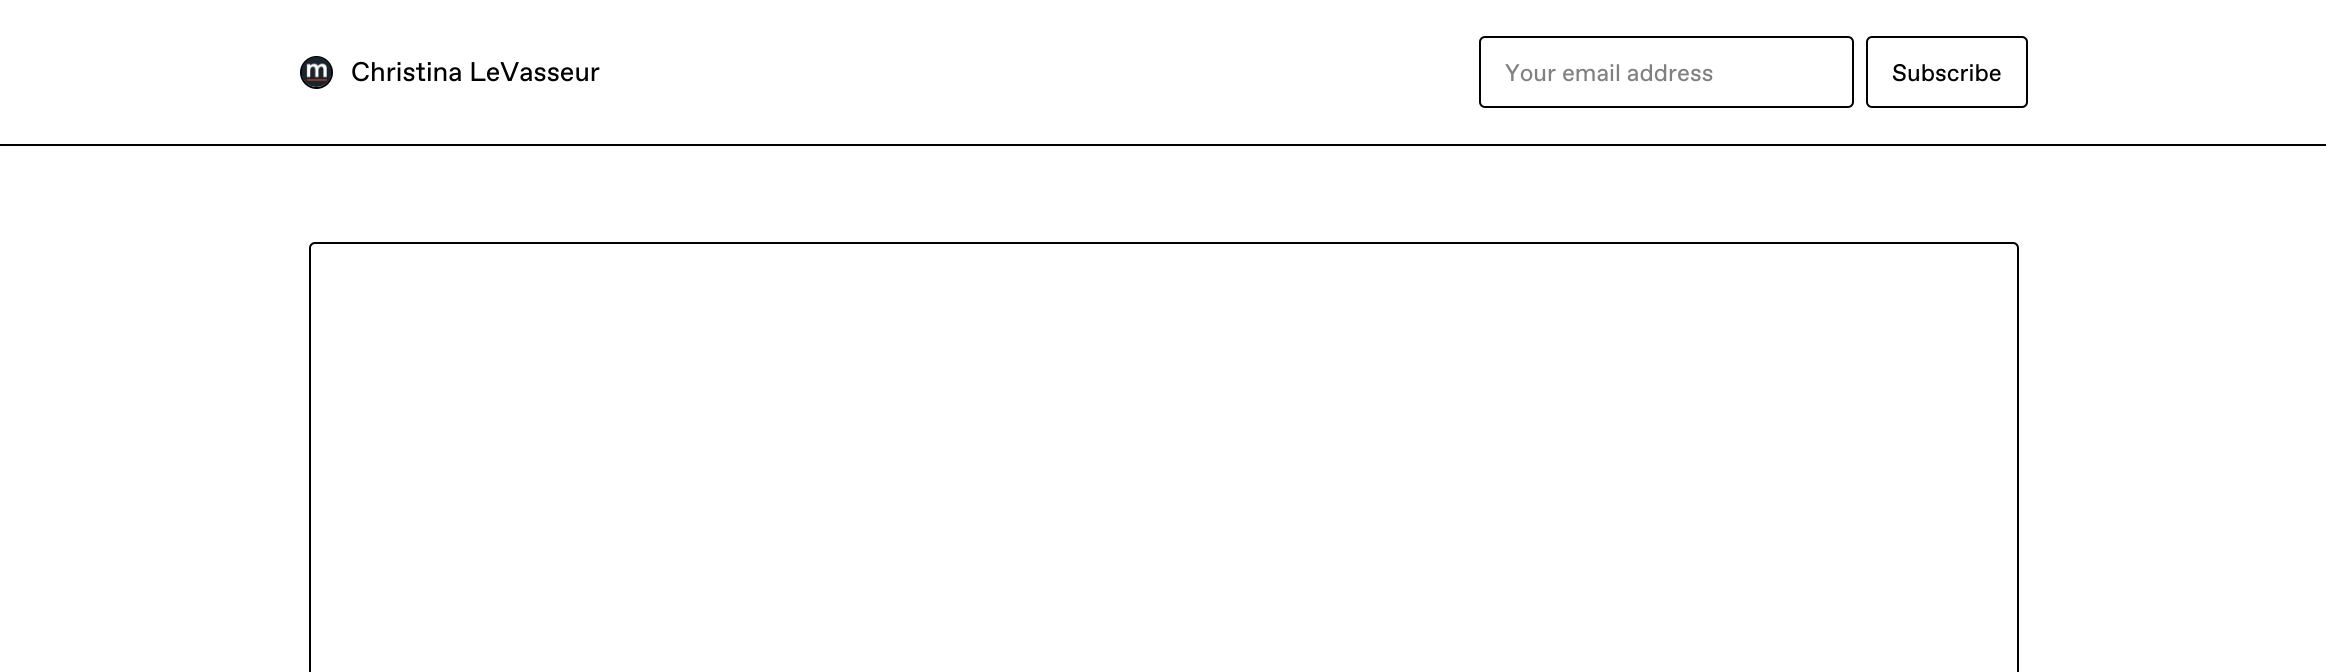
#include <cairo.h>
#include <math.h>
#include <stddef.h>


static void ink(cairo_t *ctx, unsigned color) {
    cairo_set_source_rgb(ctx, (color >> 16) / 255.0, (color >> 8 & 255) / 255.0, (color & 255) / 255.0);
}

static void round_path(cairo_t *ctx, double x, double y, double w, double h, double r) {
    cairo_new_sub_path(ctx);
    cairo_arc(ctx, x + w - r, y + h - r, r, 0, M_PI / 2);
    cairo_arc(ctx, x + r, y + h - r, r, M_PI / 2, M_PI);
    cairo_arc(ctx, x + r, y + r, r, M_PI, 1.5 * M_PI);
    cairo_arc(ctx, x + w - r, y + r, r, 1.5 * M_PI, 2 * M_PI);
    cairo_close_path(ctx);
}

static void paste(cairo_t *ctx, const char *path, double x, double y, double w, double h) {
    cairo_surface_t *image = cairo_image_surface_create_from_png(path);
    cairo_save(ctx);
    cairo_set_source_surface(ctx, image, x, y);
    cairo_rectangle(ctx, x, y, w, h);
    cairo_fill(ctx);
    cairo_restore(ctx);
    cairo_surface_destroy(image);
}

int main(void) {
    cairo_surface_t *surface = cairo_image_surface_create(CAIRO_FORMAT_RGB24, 2326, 672);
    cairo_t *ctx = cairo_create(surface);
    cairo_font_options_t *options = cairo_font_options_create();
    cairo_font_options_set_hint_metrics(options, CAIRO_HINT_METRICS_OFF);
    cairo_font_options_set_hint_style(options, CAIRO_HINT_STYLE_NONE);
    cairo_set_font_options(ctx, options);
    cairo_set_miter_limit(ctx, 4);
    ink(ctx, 0xFFFFFF);
    cairo_paint(ctx);
    ink(ctx, 0x000000);
    cairo_rectangle(ctx, 0, 144, 2326, 2);
    cairo_fill(ctx);
    cairo_arc(ctx, 316.5, 72.5, 15.5, 0, 2 * M_PI);
    cairo_stroke(ctx);
    paste(ctx, "media/1.png", 301, 57, 31, 30);
    cairo_select_font_face(ctx, "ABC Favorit", CAIRO_FONT_SLANT_NORMAL, CAIRO_FONT_WEIGHT_NORMAL);
    cairo_set_font_size(ctx, 27);
    cairo_move_to(ctx, 351, 81);
    cairo_show_text(ctx, "Christina LeVasseur");
    round_path(ctx, 1480, 37, 373, 70, 5);
    cairo_stroke(ctx);
    cairo_set_font_size(ctx, 24);
    ink(ctx, 0x808080);
    cairo_move_to(ctx, 1505, 81);
    cairo_show_text(ctx, "Your email address");
    round_path(ctx, 1867, 37, 160, 70, 5);
    ink(ctx, 0x000000);
    cairo_stroke(ctx);
    cairo_move_to(ctx, 1892, 81);
    cairo_show_text(ctx, "Subscribe");
    round_path(ctx, 310, 243, 1708, 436, 5);
    cairo_stroke(ctx);
    cairo_surface_write_to_png(surface, "image.png");
    cairo_font_options_destroy(options);
    cairo_destroy(ctx);
    cairo_surface_destroy(surface);
    return 0;
}
